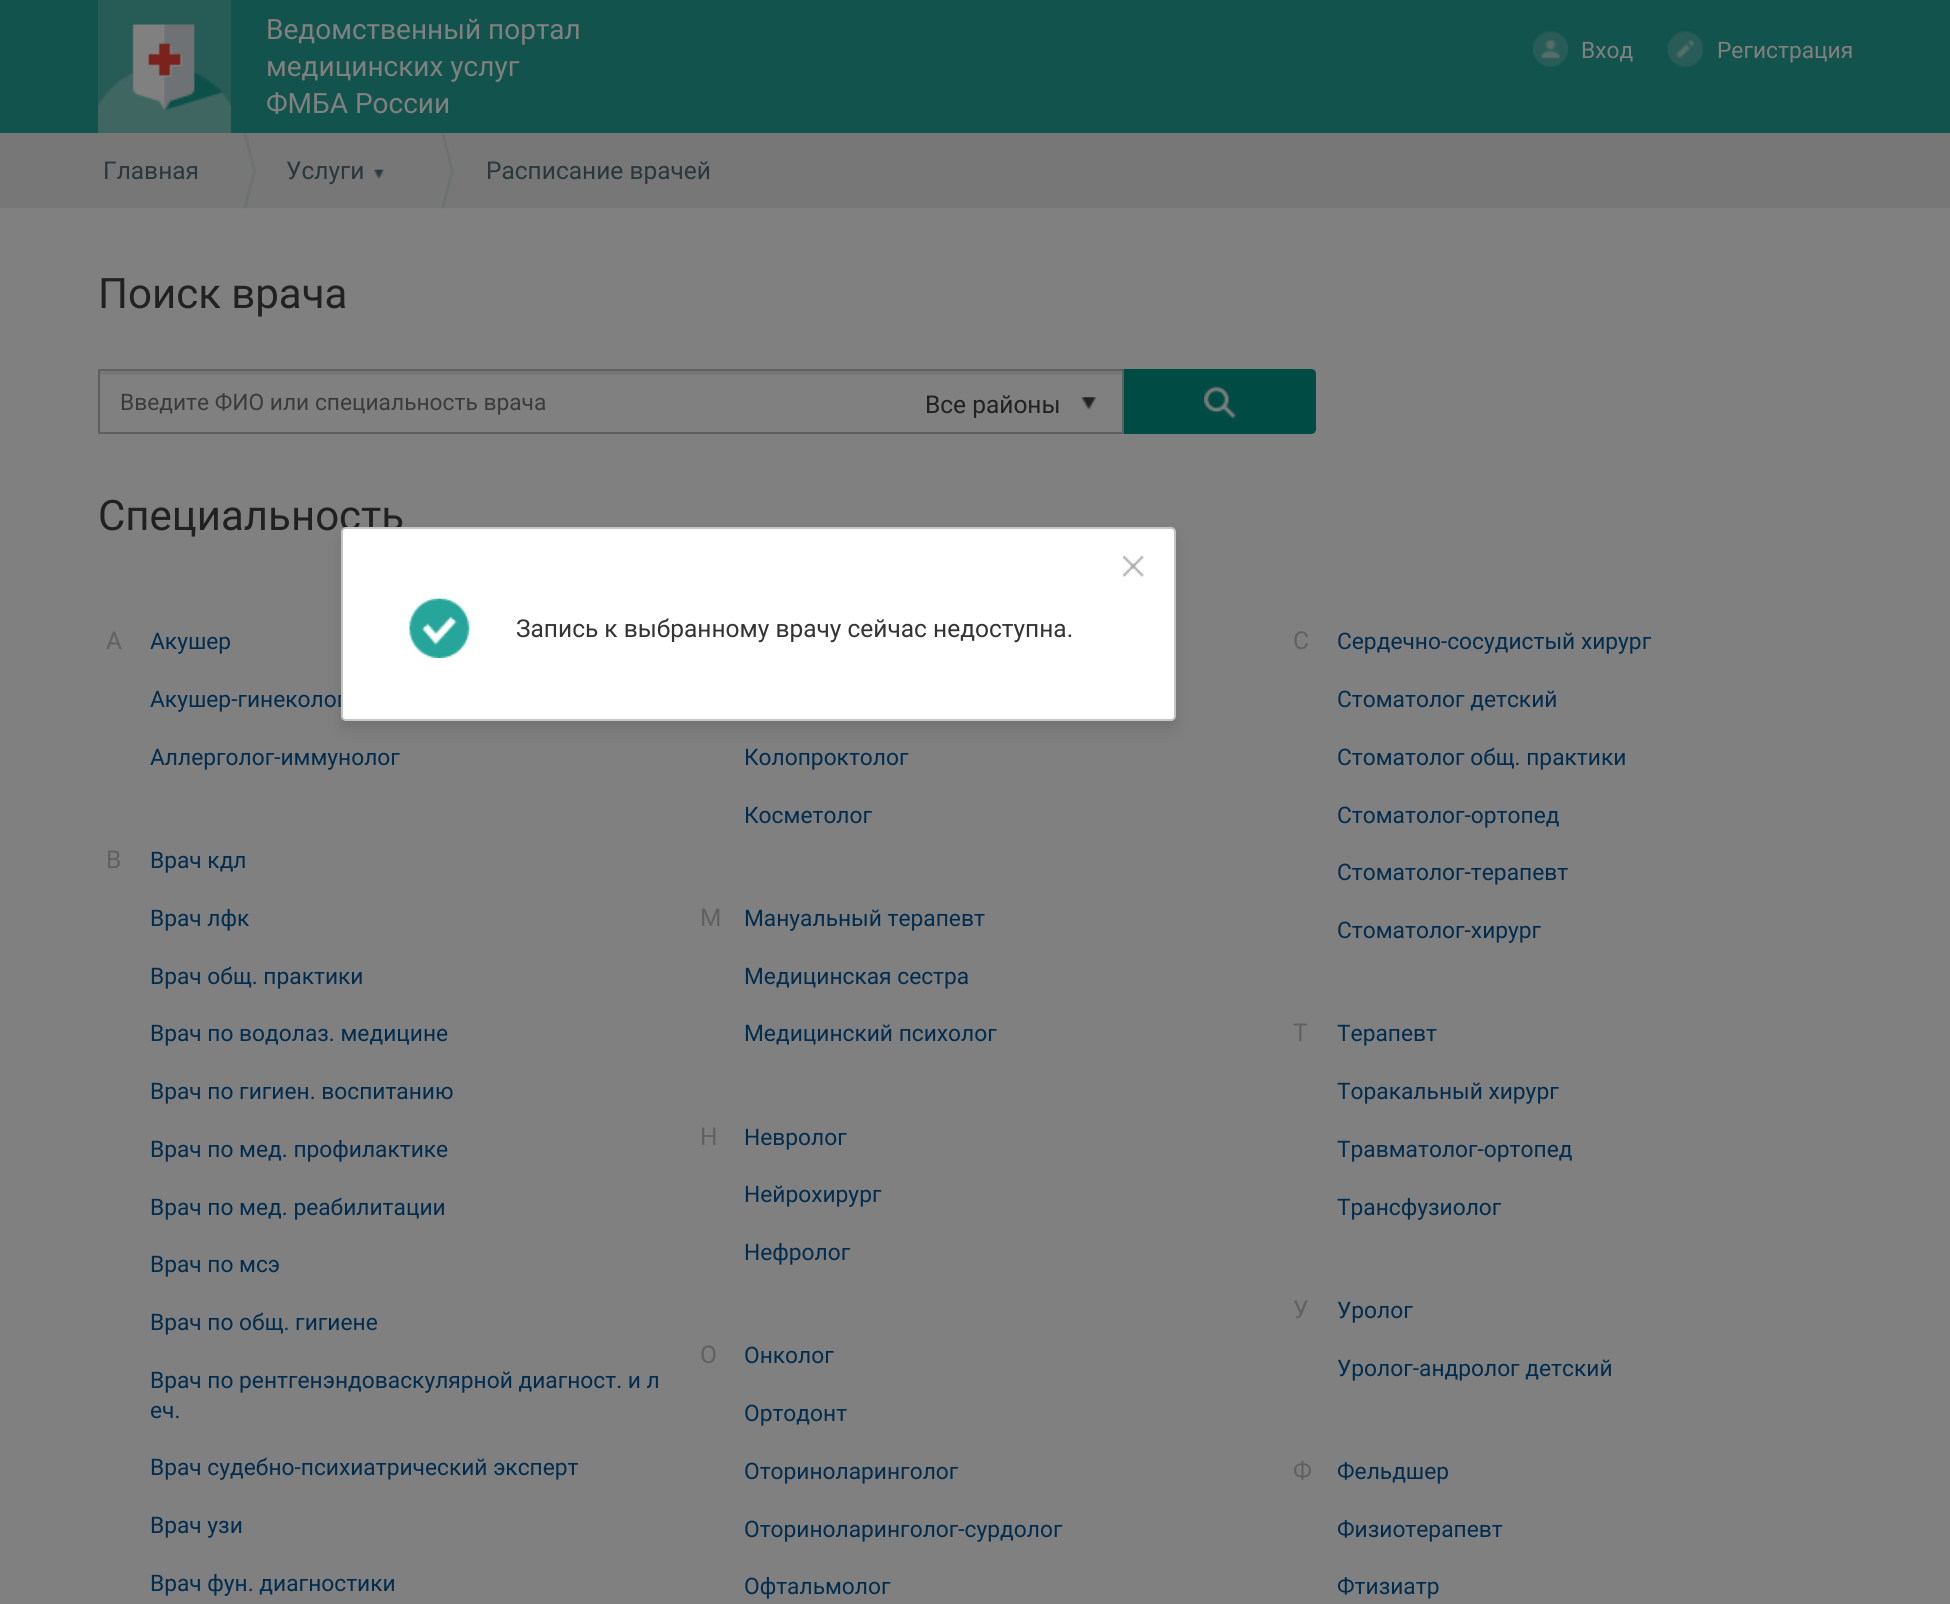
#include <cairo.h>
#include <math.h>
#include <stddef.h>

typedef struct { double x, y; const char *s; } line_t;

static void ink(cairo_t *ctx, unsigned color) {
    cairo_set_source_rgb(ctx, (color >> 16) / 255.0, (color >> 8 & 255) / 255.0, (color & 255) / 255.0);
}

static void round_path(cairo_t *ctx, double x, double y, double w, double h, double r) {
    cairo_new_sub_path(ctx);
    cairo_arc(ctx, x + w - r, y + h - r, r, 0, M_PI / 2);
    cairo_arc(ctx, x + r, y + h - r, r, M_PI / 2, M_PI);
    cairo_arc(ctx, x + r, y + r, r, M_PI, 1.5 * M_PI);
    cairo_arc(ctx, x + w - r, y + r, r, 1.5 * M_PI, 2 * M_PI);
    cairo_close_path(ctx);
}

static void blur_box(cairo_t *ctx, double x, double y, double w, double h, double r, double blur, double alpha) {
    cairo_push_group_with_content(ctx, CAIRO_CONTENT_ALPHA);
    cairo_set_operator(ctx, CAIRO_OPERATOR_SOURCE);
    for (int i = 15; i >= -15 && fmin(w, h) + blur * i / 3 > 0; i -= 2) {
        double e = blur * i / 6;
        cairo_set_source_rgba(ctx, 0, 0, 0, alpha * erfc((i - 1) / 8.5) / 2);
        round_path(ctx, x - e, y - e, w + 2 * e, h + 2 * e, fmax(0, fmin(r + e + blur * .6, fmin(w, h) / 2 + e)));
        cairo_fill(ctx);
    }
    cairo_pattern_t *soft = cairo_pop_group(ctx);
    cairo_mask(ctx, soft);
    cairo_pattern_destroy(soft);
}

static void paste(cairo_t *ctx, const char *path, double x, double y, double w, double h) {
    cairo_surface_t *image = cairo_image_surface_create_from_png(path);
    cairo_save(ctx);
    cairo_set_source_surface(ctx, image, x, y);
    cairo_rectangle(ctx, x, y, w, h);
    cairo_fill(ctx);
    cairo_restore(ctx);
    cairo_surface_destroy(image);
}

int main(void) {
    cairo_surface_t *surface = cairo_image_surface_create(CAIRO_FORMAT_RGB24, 1950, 1604);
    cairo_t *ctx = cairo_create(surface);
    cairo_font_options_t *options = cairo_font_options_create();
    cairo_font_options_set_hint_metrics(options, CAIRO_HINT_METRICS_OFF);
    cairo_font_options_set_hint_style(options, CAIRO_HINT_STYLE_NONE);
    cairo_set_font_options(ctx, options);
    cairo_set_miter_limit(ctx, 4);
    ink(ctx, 0x808080);
    cairo_paint(ctx);
    ink(ctx, 0x13534D);
    cairo_rectangle(ctx, 0, 0, 1950, 133);
    cairo_fill(ctx);
    paste(ctx, "media/1.png", 98, 0, 133, 133);
    cairo_select_font_face(ctx, "Roboto", CAIRO_FONT_SLANT_NORMAL, CAIRO_FONT_WEIGHT_NORMAL);
    cairo_set_font_size(ctx, 28);
    ink(ctx, 0x808080);
    {
        static const line_t items[] = {
            {266, 39, "Ведомственный портал"},
            {266, 76, "медицинских услуг"},
            {266, 113, "ФМБА России"},
        };
        for (size_t i = 0; i < sizeof items / sizeof *items; i++) {
            cairo_move_to(ctx, items[i].x, items[i].y);
            cairo_show_text(ctx, items[i].s);
        }
    }
    paste(ctx, "media/2.png", 1533, 31, 35, 36);
    cairo_set_font_size(ctx, 22.75);
    cairo_move_to(ctx, 1581, 58);
    cairo_show_text(ctx, "Вход");
    paste(ctx, "media/3.png", 1667, 31, 36, 36);
    cairo_move_to(ctx, 1717, 58);
    cairo_show_text(ctx, "Регистрация");
    ink(ctx, 0x777777);
    cairo_rectangle(ctx, 0, 133, 1950, 75);
    cairo_fill(ctx);
    cairo_set_font_size(ctx, 24.5);
    ink(ctx, 0x2A373D);
    cairo_move_to(ctx, 103, 179);
    cairo_show_text(ctx, "Главная");
    paste(ctx, "media/4.png", 243, 133, 13, 76);
    cairo_move_to(ctx, 286, 179);
    cairo_show_text(ctx, "Услуги");
    paste(ctx, "media/5.png", 374, 169, 10, 10);
    paste(ctx, "media/6.png", 441, 133, 13, 76);
    cairo_move_to(ctx, 486, 179);
    cairo_show_text(ctx, "Расписание врачей");
    cairo_set_font_size(ctx, 42);
    ink(ctx, 0x212121);
    cairo_move_to(ctx, 98, 308);
    cairo_show_text(ctx, "Поиск врача");
    ink(ctx, 0x777777);
    cairo_rectangle(ctx, 100, 371, 1022, 4);
    cairo_fill(ctx);
    cairo_rectangle(ctx, 99, 370, 1024, 63);
    ink(ctx, 0x5F5F5F);
    cairo_stroke(ctx);
    cairo_set_font_size(ctx, 22.75);
    ink(ctx, 0x3B3B3B);
    cairo_move_to(ctx, 120, 410);
    cairo_show_text(ctx, "Введите ФИО или специальность врача");
    cairo_set_font_size(ctx, 24.5);
    ink(ctx, 0x212121);
    cairo_move_to(ctx, 925, 413);
    cairo_show_text(ctx, "Все районы");
    paste(ctx, "media/7.png", 1081, 397, 15, 13);
    ink(ctx, 0x004B44);
    cairo_new_path(ctx);
    cairo_move_to(ctx, 1124, 369);
    cairo_line_to(ctx, 1311, 369);
    cairo_curve_to(ctx, 1314, 369, 1316, 371, 1316, 374);
    cairo_line_to(ctx, 1316, 429);
    cairo_curve_to(ctx, 1316, 432, 1314, 434, 1311, 434);
    cairo_line_to(ctx, 1124, 434);
    cairo_close_path(ctx);
    cairo_fill(ctx);
    paste(ctx, "media/8.png", 1204, 386, 32, 33);
    cairo_set_font_size(ctx, 42);
    ink(ctx, 0x212121);
    cairo_move_to(ctx, 98, 530);
    cairo_show_text(ctx, "Специальность");
    cairo_set_font_size(ctx, 24.5);
    ink(ctx, 0x616161);
    cairo_move_to(ctx, 106, 649);
    cairo_show_text(ctx, "А");
    cairo_set_font_size(ctx, 22.75);
    ink(ctx, 0x012C4E);
    {
        static const line_t items[] = {
            {150, 649, "Акушер"},
            {150, 707, "Акушер-гинеколог"},
            {150, 765, "Аллерголог-иммунолог"},
            {744, 765, "Колопроктолог"},
            {744, 823, "Косметолог"},
        };
        for (size_t i = 0; i < sizeof items / sizeof *items; i++) {
            cairo_move_to(ctx, items[i].x, items[i].y);
            cairo_show_text(ctx, items[i].s);
        }
    }
    cairo_set_font_size(ctx, 24.5);
    ink(ctx, 0x616161);
    cairo_move_to(ctx, 1293, 649);
    cairo_show_text(ctx, "С");
    cairo_set_font_size(ctx, 22.75);
    ink(ctx, 0x012C4E);
    {
        static const line_t items[] = {
            {1337, 649, "Сердечно-сосудистый хирург"},
            {1337, 707, "Стоматолог детский"},
            {1337, 765, "Стоматолог общ. практики"},
            {1337, 823, "Стоматолог-ортопед"},
            {1337, 880, "Стоматолог-терапевт"},
            {1337, 938, "Стоматолог-хирург"},
        };
        for (size_t i = 0; i < sizeof items / sizeof *items; i++) {
            cairo_move_to(ctx, items[i].x, items[i].y);
            cairo_show_text(ctx, items[i].s);
        }
    }
    cairo_set_font_size(ctx, 24.5);
    ink(ctx, 0x616161);
    cairo_move_to(ctx, 106, 868);
    cairo_show_text(ctx, "В");
    cairo_set_font_size(ctx, 22.75);
    ink(ctx, 0x012C4E);
    {
        static const line_t items[] = {
            {150, 868, "Врач кдл"},
            {150, 926, "Врач лфк"},
            {150, 984, "Врач общ. практики"},
            {150, 1041, "Врач по водолаз. медицине"},
            {150, 1099, "Врач по гигиен. воспитанию"},
            {150, 1157, "Врач по мед. профилактике"},
            {150, 1215, "Врач по мед. реабилитации"},
            {150, 1272, "Врач по мсэ"},
            {150, 1330, "Врач по общ. гигиене"},
            {150, 1388, "Врач по рентгенэндоваскулярной диагност. и л"},
            {150, 1418, "еч."},
            {150, 1475, "Врач судебно-психиатрический эксперт"},
            {150, 1533, "Врач узи"},
            {150, 1591, "Врач фун. диагностики"},
        };
        for (size_t i = 0; i < sizeof items / sizeof *items; i++) {
            cairo_move_to(ctx, items[i].x, items[i].y);
            cairo_show_text(ctx, items[i].s);
        }
    }
    cairo_set_font_size(ctx, 24.5);
    ink(ctx, 0x616161);
    cairo_move_to(ctx, 700, 926);
    cairo_show_text(ctx, "М");
    cairo_set_font_size(ctx, 22.75);
    ink(ctx, 0x012C4E);
    {
        static const line_t items[] = {
            {744, 926, "Мануальный терапевт"},
            {744, 984, "Медицинская сестра"},
            {744, 1041, "Медицинский психолог"},
        };
        for (size_t i = 0; i < sizeof items / sizeof *items; i++) {
            cairo_move_to(ctx, items[i].x, items[i].y);
            cairo_show_text(ctx, items[i].s);
        }
    }
    cairo_set_font_size(ctx, 24.5);
    ink(ctx, 0x616161);
    cairo_move_to(ctx, 700, 1145);
    cairo_show_text(ctx, "Н");
    cairo_set_font_size(ctx, 22.75);
    ink(ctx, 0x012C4E);
    {
        static const line_t items[] = {
            {744, 1145, "Невролог"},
            {744, 1202, "Нейрохирург"},
            {744, 1260, "Нефролог"},
        };
        for (size_t i = 0; i < sizeof items / sizeof *items; i++) {
            cairo_move_to(ctx, items[i].x, items[i].y);
            cairo_show_text(ctx, items[i].s);
        }
    }
    cairo_set_font_size(ctx, 24.5);
    ink(ctx, 0x616161);
    cairo_move_to(ctx, 1293, 1041);
    cairo_show_text(ctx, "Т");
    cairo_set_font_size(ctx, 22.75);
    ink(ctx, 0x012C4E);
    {
        static const line_t items[] = {
            {1337, 1041, "Терапевт"},
            {1337, 1099, "Торакальный хирург"},
            {1337, 1157, "Травматолог-ортопед"},
            {1337, 1215, "Трансфузиолог"},
        };
        for (size_t i = 0; i < sizeof items / sizeof *items; i++) {
            cairo_move_to(ctx, items[i].x, items[i].y);
            cairo_show_text(ctx, items[i].s);
        }
    }
    cairo_set_font_size(ctx, 24.5);
    ink(ctx, 0x616161);
    cairo_move_to(ctx, 700, 1363);
    cairo_show_text(ctx, "О");
    cairo_set_font_size(ctx, 22.75);
    ink(ctx, 0x012C4E);
    {
        static const line_t items[] = {
            {744, 1363, "Онколог"},
            {744, 1421, "Ортодонт"},
            {744, 1479, "Оториноларинголог"},
            {744, 1537, "Оториноларинголог-сурдолог"},
            {744, 1594, "Офтальмолог"},
        };
        for (size_t i = 0; i < sizeof items / sizeof *items; i++) {
            cairo_move_to(ctx, items[i].x, items[i].y);
            cairo_show_text(ctx, items[i].s);
        }
    }
    cairo_set_font_size(ctx, 24.5);
    ink(ctx, 0x616161);
    cairo_move_to(ctx, 1293, 1318);
    cairo_show_text(ctx, "У");
    cairo_set_font_size(ctx, 22.75);
    ink(ctx, 0x012C4E);
    cairo_move_to(ctx, 1337, 1318);
    cairo_show_text(ctx, "Уролог");
    cairo_move_to(ctx, 1337, 1376);
    cairo_show_text(ctx, "Уролог-андролог детский");
    cairo_set_font_size(ctx, 24.5);
    ink(ctx, 0x616161);
    cairo_move_to(ctx, 1293, 1479);
    cairo_show_text(ctx, "Ф");
    cairo_set_font_size(ctx, 22.75);
    ink(ctx, 0x012C4E);
    {
        static const line_t items[] = {
            {1337, 1479, "Фельдшер"},
            {1337, 1537, "Физиотерапевт"},
            {1337, 1594, "Фтизиатр"},
        };
        for (size_t i = 0; i < sizeof items / sizeof *items; i++) {
            cairo_move_to(ctx, items[i].x, items[i].y);
            cairo_show_text(ctx, items[i].s);
        }
    }
    ink(ctx, 0x000000);
    blur_box(ctx, 341, 536, 835, 194, 5, 7, 0.1);
    ink(ctx, 0xFFFFFF);
    round_path(ctx, 342, 528, 833, 192, 4);
    cairo_fill_preserve(ctx);
    ink(ctx, 0xC5C5C5);
    cairo_stroke(ctx);
    paste(ctx, "media/9.png", 1122, 555, 23, 23);
    paste(ctx, "media/10.png", 409, 598, 61, 60);
    cairo_set_font_size(ctx, 24.5);
    ink(ctx, 0x333333);
    cairo_move_to(ctx, 516, 637);
    cairo_show_text(ctx, "Запись к выбранному врачу сейчас недоступна.");
    cairo_surface_write_to_png(surface, "image.png");
    cairo_font_options_destroy(options);
    cairo_destroy(ctx);
    cairo_surface_destroy(surface);
    return 0;
}
